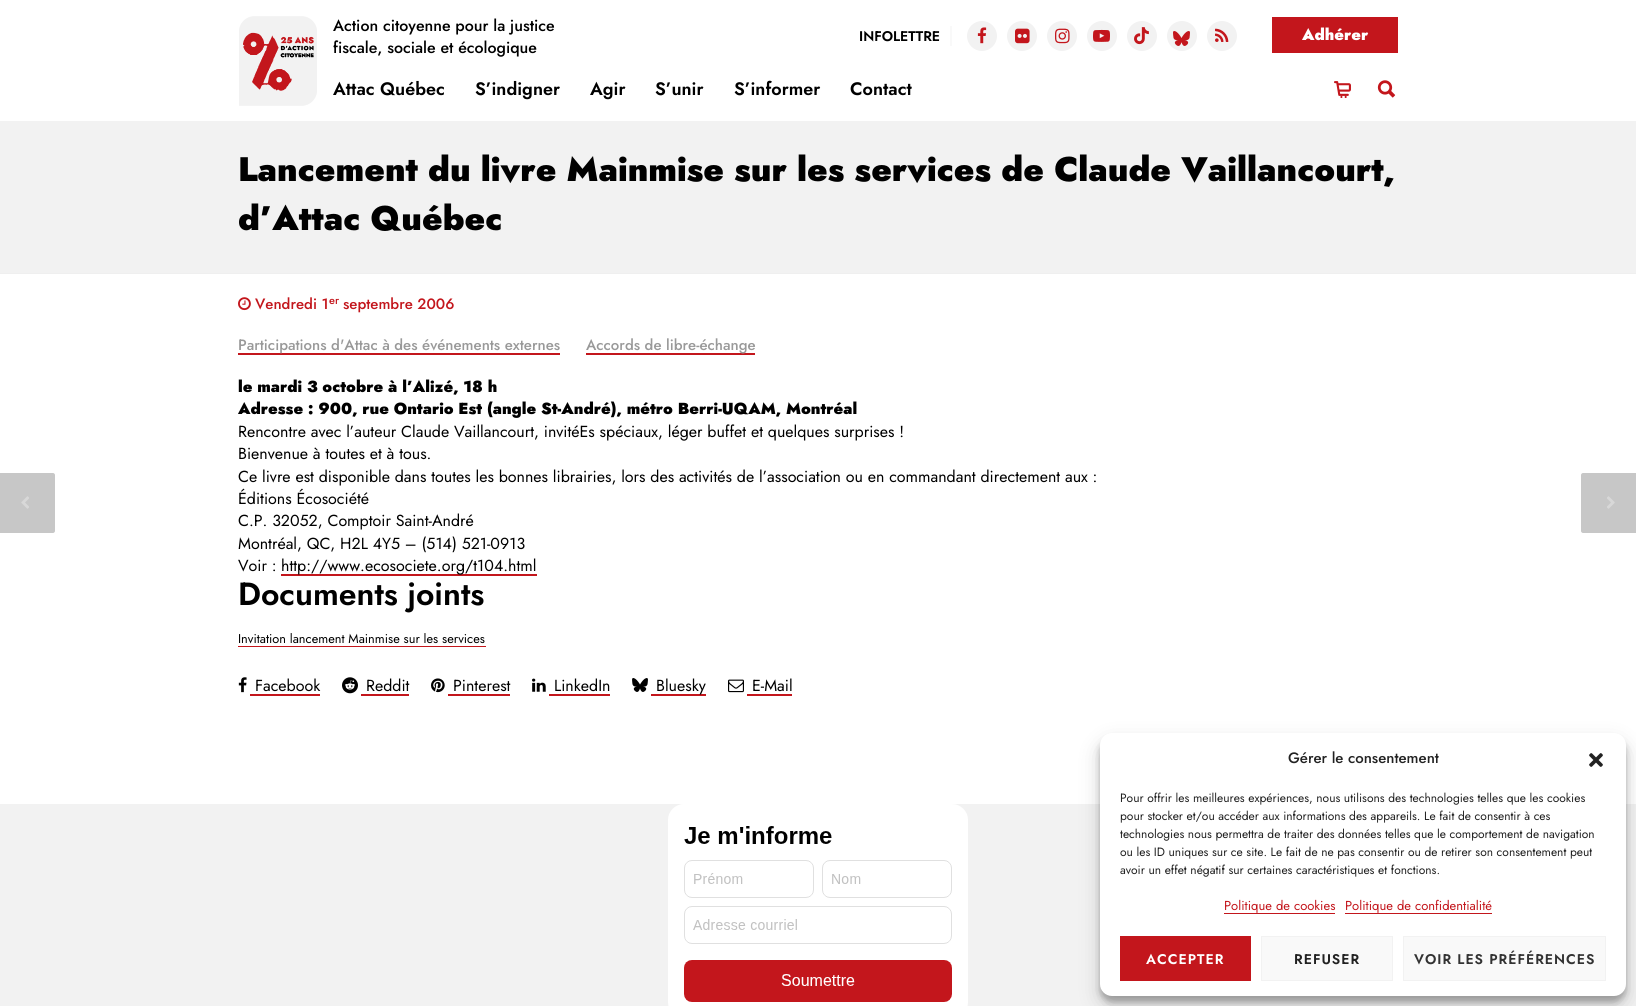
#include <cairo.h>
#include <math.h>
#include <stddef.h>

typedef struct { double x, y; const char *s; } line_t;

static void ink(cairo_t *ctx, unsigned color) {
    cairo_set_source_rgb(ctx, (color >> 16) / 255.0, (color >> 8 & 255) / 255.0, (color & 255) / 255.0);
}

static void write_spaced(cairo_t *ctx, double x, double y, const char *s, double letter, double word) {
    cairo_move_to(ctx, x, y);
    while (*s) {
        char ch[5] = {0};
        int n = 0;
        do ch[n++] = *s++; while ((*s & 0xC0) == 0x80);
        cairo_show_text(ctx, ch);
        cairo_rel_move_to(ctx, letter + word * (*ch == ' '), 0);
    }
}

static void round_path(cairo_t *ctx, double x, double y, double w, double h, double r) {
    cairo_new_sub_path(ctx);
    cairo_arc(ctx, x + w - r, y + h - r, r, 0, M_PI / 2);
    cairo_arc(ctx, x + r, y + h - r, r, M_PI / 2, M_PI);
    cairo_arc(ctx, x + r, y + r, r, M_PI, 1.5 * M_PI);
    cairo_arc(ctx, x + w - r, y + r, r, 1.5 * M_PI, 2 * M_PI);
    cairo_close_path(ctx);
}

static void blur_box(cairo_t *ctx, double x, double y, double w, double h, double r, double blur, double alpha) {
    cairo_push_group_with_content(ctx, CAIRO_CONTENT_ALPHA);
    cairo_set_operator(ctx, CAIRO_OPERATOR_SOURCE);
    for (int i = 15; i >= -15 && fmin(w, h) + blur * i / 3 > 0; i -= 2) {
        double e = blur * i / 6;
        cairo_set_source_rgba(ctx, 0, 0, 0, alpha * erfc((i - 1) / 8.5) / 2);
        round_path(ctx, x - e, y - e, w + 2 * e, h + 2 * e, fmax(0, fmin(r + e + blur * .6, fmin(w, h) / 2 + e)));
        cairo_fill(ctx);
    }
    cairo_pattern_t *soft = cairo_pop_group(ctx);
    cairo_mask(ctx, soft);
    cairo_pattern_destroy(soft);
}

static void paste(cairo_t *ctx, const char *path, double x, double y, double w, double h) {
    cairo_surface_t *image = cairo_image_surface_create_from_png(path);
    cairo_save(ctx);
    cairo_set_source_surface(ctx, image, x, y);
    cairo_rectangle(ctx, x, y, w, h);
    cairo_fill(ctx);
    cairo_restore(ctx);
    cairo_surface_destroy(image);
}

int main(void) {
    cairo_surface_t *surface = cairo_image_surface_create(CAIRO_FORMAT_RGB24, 1636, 1006);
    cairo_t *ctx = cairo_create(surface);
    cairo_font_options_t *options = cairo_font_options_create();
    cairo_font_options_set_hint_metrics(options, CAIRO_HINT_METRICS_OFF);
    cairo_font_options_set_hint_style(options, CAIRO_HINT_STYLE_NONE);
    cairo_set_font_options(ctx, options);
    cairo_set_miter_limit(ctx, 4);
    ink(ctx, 0xFFFFFF);
    cairo_paint(ctx);
    cairo_select_font_face(ctx, "Jost Medium", CAIRO_FONT_SLANT_NORMAL, CAIRO_FONT_WEIGHT_NORMAL);
    cairo_set_font_size(ctx, 16);
    ink(ctx, 0x000000);
    cairo_move_to(ctx, 333, 31);
    cairo_show_text(ctx, "Action citoyenne pour la justice");
    cairo_move_to(ctx, 333, 53);
    cairo_show_text(ctx, "fiscale, sociale et écologique");
    cairo_select_font_face(ctx, "Jost SemiBold", CAIRO_FONT_SLANT_NORMAL, CAIRO_FONT_WEIGHT_NORMAL);
    cairo_set_font_size(ctx, 14);
    cairo_move_to(ctx, 859, 41);
    cairo_show_text(ctx, "INFOLETTRE");
    ink(ctx, 0xF9F9F9);
    cairo_rectangle(ctx, 950, 26, 2, 20);
    cairo_fill(ctx);
    ink(ctx, 0xF2F2F2);
    cairo_arc(ctx, 982, 36, 15, 0, 2 * M_PI);
    cairo_fill(ctx);
    paste(ctx, "media/1.png", 977, 27, 10, 17);
    cairo_arc(ctx, 1022, 36, 15, 0, 2 * M_PI);
    cairo_fill(ctx);
    paste(ctx, "media/2.png", 1015, 28, 15, 16);
    cairo_arc(ctx, 1062, 36, 15, 0, 2 * M_PI);
    cairo_fill(ctx);
    paste(ctx, "media/3.png", 1055, 28, 15, 16);
    cairo_arc(ctx, 1102, 36, 15, 0, 2 * M_PI);
    cairo_fill(ctx);
    paste(ctx, "media/4.png", 1093, 29, 17, 13);
    cairo_arc(ctx, 1142, 36, 15, 0, 2 * M_PI);
    cairo_fill(ctx);
    paste(ctx, "media/5.png", 1134, 27, 15, 18);
    cairo_arc(ctx, 1182, 36, 15, 0, 2 * M_PI);
    cairo_fill(ctx);
    paste(ctx, "media/6.png", 1173, 31, 17, 15);
    cairo_arc(ctx, 1222, 36, 15, 0, 2 * M_PI);
    cairo_fill(ctx);
    paste(ctx, "media/7.png", 1215, 28, 14, 14);
    ink(ctx, 0xC3161C);
    cairo_rectangle(ctx, 1272, 17, 126, 36);
    cairo_fill(ctx);
    cairo_select_font_face(ctx, "Jost Black", CAIRO_FONT_SLANT_NORMAL, CAIRO_FONT_WEIGHT_NORMAL);
    cairo_set_font_size(ctx, 16);
    ink(ctx, 0xFFFFFF);
    cairo_move_to(ctx, 1302, 40);
    cairo_show_text(ctx, "Adhérer");
    paste(ctx, "media/8.png", 239, 16, 78, 90);
    cairo_select_font_face(ctx, "Jost SemiBold", CAIRO_FONT_SLANT_NORMAL, CAIRO_FONT_WEIGHT_NORMAL);
    cairo_set_font_size(ctx, 18);
    ink(ctx, 0x000000);
    {
        static const line_t items[] = {
            {333, 95, "Attac Québec"},
            {475, 95, "S’indigner"},
            {590, 95, "Agir"},
            {655, 95, "S’unir"},
            {734, 95, "S’informer"},
            {850, 95, "Contact"},
        };
        for (size_t i = 0; i < sizeof items / sizeof *items; i++) {
            cairo_move_to(ctx, items[i].x, items[i].y);
            cairo_show_text(ctx, items[i].s);
        }
    }
    paste(ctx, "media/9.png", 1334, 81, 17, 17);
    paste(ctx, "media/10.png", 1377, 80, 19, 18);
    ink(ctx, 0xF2F2F2);
    cairo_rectangle(ctx, 0, 121, 1636, 152);
    cairo_fill(ctx);
    ink(ctx, 0xEFEFEF);
    cairo_rectangle(ctx, 0, 273, 1636, 1);
    cairo_fill(ctx);
    cairo_select_font_face(ctx, "Jost Black", CAIRO_FONT_SLANT_NORMAL, CAIRO_FONT_WEIGHT_NORMAL);
    cairo_set_font_size(ctx, 34);
    ink(ctx, 0x000000);
    cairo_move_to(ctx, 238, 181);
    cairo_show_text(ctx, "Lancement du livre Mainmise sur les services de Claude Vaillancourt,");
    cairo_move_to(ctx, 238, 230);
    cairo_show_text(ctx, "d’Attac Québec");
    paste(ctx, "media/11.png", 238, 297, 13, 14);
    cairo_select_font_face(ctx, "Jost Medium", CAIRO_FONT_SLANT_NORMAL, CAIRO_FONT_WEIGHT_NORMAL);
    cairo_set_font_size(ctx, 15);
    ink(ctx, 0xC3161C);
    cairo_move_to(ctx, 255, 309);
    cairo_show_text(ctx, "Vendredi 1");
    cairo_set_font_size(ctx, 11);
    cairo_move_to(ctx, 329, 304);
    cairo_show_text(ctx, "er");
    cairo_set_font_size(ctx, 15);
    cairo_move_to(ctx, 343, 309);
    cairo_show_text(ctx, "septembre 2006");
    cairo_rectangle(ctx, 238, 353, 322, 2);
    cairo_fill(ctx);
    ink(ctx, 0x999999);
    cairo_move_to(ctx, 238, 350);
    cairo_show_text(ctx, "Participations d'Attac à des événements externes");
    ink(ctx, 0xC3161C);
    cairo_rectangle(ctx, 586, 353, 169, 2);
    cairo_fill(ctx);
    ink(ctx, 0x999999);
    cairo_move_to(ctx, 586, 350);
    cairo_show_text(ctx, "Accords de libre-échange");
    cairo_select_font_face(ctx, "Jost Black", CAIRO_FONT_SLANT_NORMAL, CAIRO_FONT_WEIGHT_NORMAL);
    cairo_set_font_size(ctx, 16);
    ink(ctx, 0x000000);
    cairo_move_to(ctx, 238, 392);
    cairo_show_text(ctx, "le mardi 3 octobre à l’Alizé, 18 h");
    cairo_move_to(ctx, 238, 414);
    cairo_show_text(ctx, "Adresse : 900, rue Ontario Est (angle St-André), métro Berri-UQAM, Montréal");
    cairo_select_font_face(ctx, "Jost", CAIRO_FONT_SLANT_NORMAL, CAIRO_FONT_WEIGHT_NORMAL);
    {
        static const line_t items[] = {
            {238, 437, "Rencontre avec l’auteur Claude Vaillancourt, invitéEs spéciaux, léger buffet et quelques surprises !"},
            {238, 459, "Bienvenue à toutes et à tous."},
            {238, 482, "Ce livre est disponible dans toutes les bonnes librairies, lors des activités de l’association ou en commandant directement aux :"},
            {238, 504, "Éditions Écosociété"},
            {238, 526, "C.P. 32052, Comptoir Saint-André"},
            {238, 549, "Montréal, QC, H2L 4Y5 – (514) 521-0913"},
            {238, 571, "Voir :"},
        };
        for (size_t i = 0; i < sizeof items / sizeof *items; i++) {
            cairo_move_to(ctx, items[i].x, items[i].y);
            cairo_show_text(ctx, items[i].s);
        }
    }
    ink(ctx, 0xC3161C);
    cairo_rectangle(ctx, 281, 574, 256, 2);
    cairo_fill(ctx);
    ink(ctx, 0x000000);
    cairo_move_to(ctx, 281, 571);
    cairo_show_text(ctx, "http://www.ecosociete.org/t104.html");
    cairo_select_font_face(ctx, "Jost SemiBold", CAIRO_FONT_SLANT_NORMAL, CAIRO_FONT_WEIGHT_NORMAL);
    cairo_set_font_size(ctx, 32);
    cairo_move_to(ctx, 238, 605);
    cairo_show_text(ctx, "Documents joints");
    cairo_select_font_face(ctx, "Jost", CAIRO_FONT_SLANT_NORMAL, CAIRO_FONT_WEIGHT_NORMAL);
    cairo_set_font_size(ctx, 12.75);
    cairo_move_to(ctx, 238, 643);
    cairo_show_text(ctx, "Invitation lancement Mainmise sur les services");
    ink(ctx, 0xC3161C);
    cairo_rectangle(ctx, 238, 646, 248, 1);
    cairo_fill(ctx);
    ink(ctx, 0xC7C7C7);
    cairo_new_path(ctx);
    cairo_move_to(ctx, -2, 473);
    cairo_line_to(ctx, 53, 473);
    cairo_curve_to(ctx, 54, 473, 55, 474, 55, 475);
    cairo_line_to(ctx, 55, 531);
    cairo_curve_to(ctx, 55, 532, 54, 533, 53, 533);
    cairo_line_to(ctx, -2, 533);
    cairo_close_path(ctx);
    cairo_fill(ctx);
    paste(ctx, "media/12.png", 21, 496, 8, 13);
    cairo_new_path(ctx);
    cairo_move_to(ctx, 1583, 473);
    cairo_line_to(ctx, 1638, 473);
    cairo_line_to(ctx, 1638, 533);
    cairo_line_to(ctx, 1583, 533);
    cairo_curve_to(ctx, 1582, 533, 1581, 532, 1581, 531);
    cairo_line_to(ctx, 1581, 475);
    cairo_curve_to(ctx, 1581, 474, 1582, 473, 1583, 473);
    cairo_close_path(ctx);
    cairo_fill(ctx);
    paste(ctx, "media/13.png", 1607, 496, 8, 13);
    paste(ctx, "media/14.png", 238, 677, 9, 16);
    cairo_set_font_size(ctx, 16);
    ink(ctx, 0x000000);
    cairo_move_to(ctx, 255, 691);
    cairo_show_text(ctx, "Facebook");
    ink(ctx, 0xC3161C);
    cairo_rectangle(ctx, 250, 694, 70, 2);
    cairo_fill(ctx);
    paste(ctx, "media/15.png", 342, 677, 16, 17);
    ink(ctx, 0x000000);
    cairo_move_to(ctx, 366, 691);
    cairo_show_text(ctx, "Reddit");
    ink(ctx, 0xC3161C);
    cairo_rectangle(ctx, 361, 694, 48, 2);
    cairo_fill(ctx);
    paste(ctx, "media/16.png", 431, 678, 14, 15);
    ink(ctx, 0x000000);
    cairo_move_to(ctx, 453, 691);
    cairo_show_text(ctx, "Pinterest");
    ink(ctx, 0xC3161C);
    cairo_rectangle(ctx, 448, 694, 62, 2);
    cairo_fill(ctx);
    paste(ctx, "media/17.png", 532, 678, 14, 14);
    ink(ctx, 0x000000);
    cairo_move_to(ctx, 554, 691);
    cairo_show_text(ctx, "LinkedIn");
    ink(ctx, 0xC3161C);
    cairo_rectangle(ctx, 549, 694, 61, 2);
    cairo_fill(ctx);
    paste(ctx, "media/18.png", 632, 678, 16, 14);
    cairo_rectangle(ctx, 651, 694, 55, 2);
    cairo_fill(ctx);
    ink(ctx, 0x000000);
    cairo_move_to(ctx, 656, 691);
    cairo_show_text(ctx, "Bluesky");
    paste(ctx, "media/19.png", 728, 679, 16, 14);
    cairo_move_to(ctx, 752, 691);
    cairo_show_text(ctx, "E-Mail");
    ink(ctx, 0xC3161C);
    cairo_rectangle(ctx, 747, 694, 45, 2);
    cairo_fill(ctx);
    ink(ctx, 0xF2F2F2);
    cairo_rectangle(ctx, 0, 804, 1636, 202);
    cairo_fill(ctx);
    paste(ctx, "media/20.png", 668, 804, 300, 202);
    ink(ctx, 0x000000);
    blur_box(ctx, 1100, 739, 526, 263, 12, 3, 0.23);
    blur_box(ctx, 1100, 743, 526, 263, 12, 10, 0.19);
    ink(ctx, 0xFFFFFF);
    round_path(ctx, 1100, 733, 526, 263, 12);
    cairo_fill(ctx);
    cairo_select_font_face(ctx, "Jost Medium", CAIRO_FONT_SLANT_NORMAL, CAIRO_FONT_WEIGHT_NORMAL);
    cairo_set_font_size(ctx, 15);
    ink(ctx, 0x222222);
    cairo_move_to(ctx, 1288, 763);
    cairo_show_text(ctx, "Gérer le consentement");
    paste(ctx, "media/21.png", 1589, 753, 14, 14);
    cairo_select_font_face(ctx, "Jost", CAIRO_FONT_SLANT_NORMAL, CAIRO_FONT_WEIGHT_NORMAL);
    cairo_set_font_size(ctx, 12);
    {
        static const line_t items[] = {
            {1120, 802, "Pour offrir les meilleures expériences, nous utilisons des technologies telles que les cookies"},
            {1120, 820, "pour stocker et/ou accéder aux informations des appareils. Le fait de consentir à ces"},
            {1120, 838, "technologies nous permettra de traiter des données telles que le comportement de navigation"},
            {1120, 856, "ou les ID uniques sur ce site. Le fait de ne pas consentir ou de retirer son consentement peut"},
            {1120, 874, "avoir un effet négatif sur certaines caractéristiques et fonctions."},
        };
        for (size_t i = 0; i < sizeof items / sizeof *items; i++) {
            cairo_move_to(ctx, items[i].x, items[i].y);
            cairo_show_text(ctx, items[i].s);
        }
    }
    cairo_set_font_size(ctx, 13);
    ink(ctx, 0xC3161C);
    cairo_move_to(ctx, 1224, 910);
    cairo_show_text(ctx, "Politique de cookies");
    cairo_rectangle(ctx, 1224, 913, 111, 1);
    cairo_fill(ctx);
    cairo_move_to(ctx, 1345, 910);
    cairo_show_text(ctx, "Politique de confidentialité");
    cairo_rectangle(ctx, 1345, 913, 147, 1);
    cairo_fill(ctx);
    cairo_rectangle(ctx, 1120, 936, 131, 45);
    cairo_fill(ctx);
    cairo_select_font_face(ctx, "Jost SemiBold", CAIRO_FONT_SLANT_NORMAL, CAIRO_FONT_WEIGHT_NORMAL);
    cairo_set_font_size(ctx, 14);
    ink(ctx, 0xFFFFFF);
    write_spaced(ctx, 1146, 964, "ACCEPTER", 1, 0);
    ink(ctx, 0xF9F9F9);
    cairo_rectangle(ctx, 1261.5, 936.5, 131, 44);
    cairo_fill_preserve(ctx);
    ink(ctx, 0xF2F2F2);
    cairo_set_line_width(ctx, 1);
    cairo_stroke(ctx);
    ink(ctx, 0x222222);
    write_spaced(ctx, 1294, 964, "REFUSER", 1, 0);
    ink(ctx, 0xF9F9F9);
    cairo_rectangle(ctx, 1403.5, 936.5, 202, 44);
    cairo_fill_preserve(ctx);
    ink(ctx, 0xF2F2F2);
    cairo_stroke(ctx);
    ink(ctx, 0x333333);
    write_spaced(ctx, 1414, 964, "VOIR LES PRÉFÉRENCES", 1, 0);
    cairo_surface_write_to_png(surface, "image.png");
    cairo_font_options_destroy(options);
    cairo_destroy(ctx);
    cairo_surface_destroy(surface);
    return 0;
}
